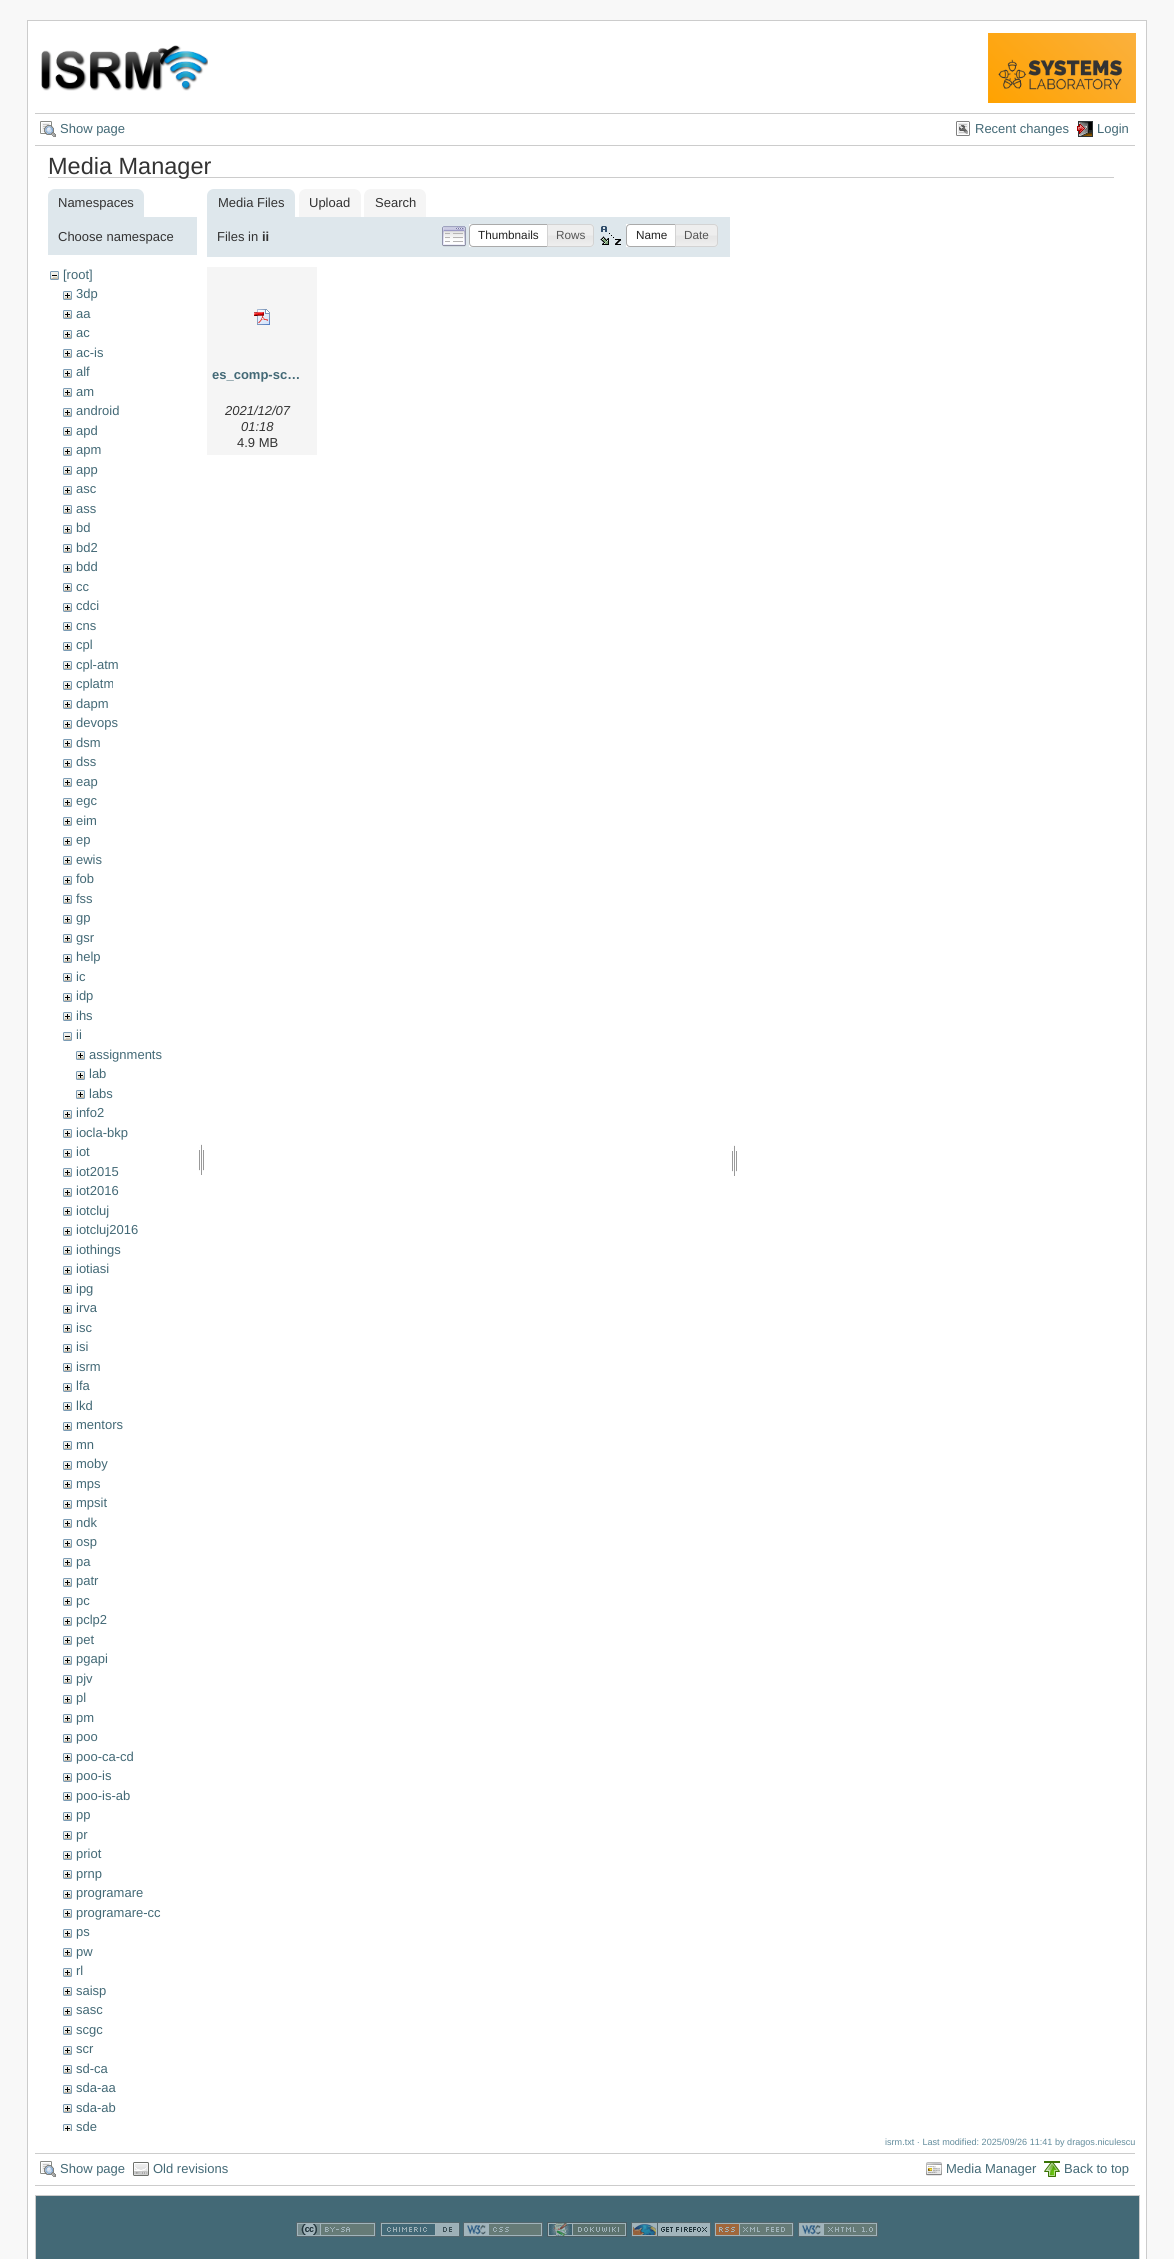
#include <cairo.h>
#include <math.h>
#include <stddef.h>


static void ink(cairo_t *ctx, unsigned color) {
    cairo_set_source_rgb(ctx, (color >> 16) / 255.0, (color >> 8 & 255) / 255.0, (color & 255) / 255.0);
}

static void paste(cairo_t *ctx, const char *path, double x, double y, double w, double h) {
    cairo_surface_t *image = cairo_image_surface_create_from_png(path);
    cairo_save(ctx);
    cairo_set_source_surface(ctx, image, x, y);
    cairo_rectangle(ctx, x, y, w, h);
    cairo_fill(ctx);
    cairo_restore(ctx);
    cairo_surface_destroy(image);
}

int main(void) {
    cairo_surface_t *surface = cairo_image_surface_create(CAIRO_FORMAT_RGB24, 1174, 2259);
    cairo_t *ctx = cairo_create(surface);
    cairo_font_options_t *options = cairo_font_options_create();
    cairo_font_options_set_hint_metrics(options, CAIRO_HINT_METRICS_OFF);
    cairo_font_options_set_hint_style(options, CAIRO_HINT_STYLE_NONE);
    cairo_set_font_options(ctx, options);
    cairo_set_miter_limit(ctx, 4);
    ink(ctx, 0xF8F8F8);
    cairo_paint(ctx);
    ink(ctx, 0xFFFFFF);
    cairo_rectangle(ctx, 27.5, 20.5, 1119, 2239);
    cairo_fill_preserve(ctx);
    ink(ctx, 0xCCCCCC);
    cairo_set_line_width(ctx, 1);
    cairo_stroke(ctx);
    paste(ctx, "media/1.png", 41, 45, 167, 46);
    paste(ctx, "media/2.png", 988, 33, 148, 70);
    cairo_rectangle(ctx, 35, 113, 1100, 1);
    cairo_fill(ctx);
    cairo_rectangle(ctx, 35, 145, 1100, 1);
    cairo_fill(ctx);
    paste(ctx, "media/3.png", 40, 121, 16, 16);
    cairo_select_font_face(ctx, "Liberation Sans", CAIRO_FONT_SLANT_NORMAL, CAIRO_FONT_WEIGHT_NORMAL);
    cairo_set_font_size(ctx, 13);
    ink(ctx, 0x436976);
    cairo_move_to(ctx, 60, 133);
    cairo_show_text(ctx, "Show page");
    paste(ctx, "media/4.png", 956, 121, 14, 15);
    cairo_move_to(ctx, 975, 133);
    cairo_show_text(ctx, "Recent changes");
    paste(ctx, "media/5.png", 1077, 121, 16, 16);
    cairo_move_to(ctx, 1097, 133);
    cairo_show_text(ctx, "Login");
    ink(ctx, 0xCCCCCC);
    cairo_rectangle(ctx, 48, 177, 1066, 1);
    cairo_fill(ctx);
    cairo_set_font_size(ctx, 23.5);
    ink(ctx, 0x333333);
    cairo_move_to(ctx, 48, 174);
    cairo_show_text(ctx, "Media Manager");
    ink(ctx, 0xDEE7EC);
    cairo_new_path(ctx);
    cairo_move_to(ctx, 55, 189);
    cairo_line_to(ctx, 137, 189);
    cairo_curve_to(ctx, 141, 189, 144, 192, 144, 196);
    cairo_line_to(ctx, 144, 217);
    cairo_line_to(ctx, 48, 217);
    cairo_line_to(ctx, 48, 196);
    cairo_curve_to(ctx, 48, 192, 51, 189, 55, 189);
    cairo_close_path(ctx);
    cairo_fill(ctx);
    cairo_set_font_size(ctx, 13);
    ink(ctx, 0x333333);
    cairo_move_to(ctx, 58, 207);
    cairo_show_text(ctx, "Namespaces");
    ink(ctx, 0xDEE7EC);
    cairo_rectangle(ctx, 48, 217, 149, 38);
    cairo_fill(ctx);
    ink(ctx, 0x333333);
    cairo_move_to(ctx, 58, 241);
    cairo_show_text(ctx, "Choose namespace");
    paste(ctx, "media/6.png", 50, 271, 9, 9);
    ink(ctx, 0x436976);
    cairo_move_to(ctx, 63, 279);
    cairo_show_text(ctx, "[root]");
    paste(ctx, "media/7.png", 63, 291, 9, 9);
    cairo_move_to(ctx, 76, 298);
    cairo_show_text(ctx, "3dp");
    paste(ctx, "media/7.png", 63, 310, 9, 9);
    cairo_move_to(ctx, 76, 318);
    cairo_show_text(ctx, "aa");
    paste(ctx, "media/7.png", 63, 330, 9, 9);
    cairo_move_to(ctx, 76, 337);
    cairo_show_text(ctx, "ac");
    paste(ctx, "media/7.png", 63, 349, 9, 9);
    cairo_move_to(ctx, 76, 357);
    cairo_show_text(ctx, "ac-is");
    paste(ctx, "media/7.png", 63, 369, 9, 9);
    cairo_move_to(ctx, 76, 376);
    cairo_show_text(ctx, "alf");
    paste(ctx, "media/7.png", 63, 388, 9, 9);
    cairo_move_to(ctx, 76, 396);
    cairo_show_text(ctx, "am");
    paste(ctx, "media/7.png", 63, 408, 9, 9);
    cairo_move_to(ctx, 76, 415);
    cairo_show_text(ctx, "android");
    paste(ctx, "media/7.png", 63, 427, 9, 9);
    cairo_move_to(ctx, 76, 435);
    cairo_show_text(ctx, "apd");
    paste(ctx, "media/7.png", 63, 447, 9, 9);
    cairo_move_to(ctx, 76, 454);
    cairo_show_text(ctx, "apm");
    paste(ctx, "media/7.png", 63, 466, 9, 9);
    cairo_move_to(ctx, 76, 474);
    cairo_show_text(ctx, "app");
    paste(ctx, "media/7.png", 63, 486, 9, 9);
    cairo_move_to(ctx, 76, 493);
    cairo_show_text(ctx, "asc");
    paste(ctx, "media/7.png", 63, 505, 9, 9);
    cairo_move_to(ctx, 76, 513);
    cairo_show_text(ctx, "ass");
    paste(ctx, "media/7.png", 63, 525, 9, 9);
    cairo_move_to(ctx, 76, 532);
    cairo_show_text(ctx, "bd");
    paste(ctx, "media/7.png", 63, 544, 9, 9);
    cairo_move_to(ctx, 76, 552);
    cairo_show_text(ctx, "bd2");
    paste(ctx, "media/7.png", 63, 564, 9, 9);
    cairo_move_to(ctx, 76, 571);
    cairo_show_text(ctx, "bdd");
    paste(ctx, "media/7.png", 63, 583, 9, 9);
    cairo_move_to(ctx, 76, 591);
    cairo_show_text(ctx, "cc");
    paste(ctx, "media/7.png", 63, 603, 9, 9);
    cairo_move_to(ctx, 76, 610);
    cairo_show_text(ctx, "cdci");
    paste(ctx, "media/7.png", 63, 622, 9, 9);
    cairo_move_to(ctx, 76, 630);
    cairo_show_text(ctx, "cns");
    paste(ctx, "media/7.png", 63, 642, 9, 9);
    cairo_move_to(ctx, 76, 649);
    cairo_show_text(ctx, "cpl");
    paste(ctx, "media/7.png", 63, 661, 9, 9);
    cairo_move_to(ctx, 76, 669);
    cairo_show_text(ctx, "cpl-atm");
    paste(ctx, "media/7.png", 63, 681, 9, 9);
    cairo_move_to(ctx, 76, 688);
    cairo_show_text(ctx, "cplatm");
    paste(ctx, "media/7.png", 63, 700, 9, 9);
    cairo_move_to(ctx, 76, 708);
    cairo_show_text(ctx, "dapm");
    paste(ctx, "media/7.png", 63, 720, 9, 9);
    cairo_move_to(ctx, 76, 727);
    cairo_show_text(ctx, "devops");
    paste(ctx, "media/7.png", 63, 739, 9, 9);
    cairo_move_to(ctx, 76, 747);
    cairo_show_text(ctx, "dsm");
    paste(ctx, "media/7.png", 63, 759, 9, 9);
    cairo_move_to(ctx, 76, 766);
    cairo_show_text(ctx, "dss");
    paste(ctx, "media/7.png", 63, 778, 9, 9);
    cairo_move_to(ctx, 76, 786);
    cairo_show_text(ctx, "eap");
    paste(ctx, "media/7.png", 63, 798, 9, 9);
    cairo_move_to(ctx, 76, 805);
    cairo_show_text(ctx, "egc");
    paste(ctx, "media/7.png", 63, 817, 9, 9);
    cairo_move_to(ctx, 76, 825);
    cairo_show_text(ctx, "eim");
    paste(ctx, "media/7.png", 63, 837, 9, 9);
    cairo_move_to(ctx, 76, 844);
    cairo_show_text(ctx, "ep");
    paste(ctx, "media/7.png", 63, 856, 9, 9);
    cairo_move_to(ctx, 76, 864);
    cairo_show_text(ctx, "ewis");
    paste(ctx, "media/7.png", 63, 876, 9, 9);
    cairo_move_to(ctx, 76, 883);
    cairo_show_text(ctx, "fob");
    paste(ctx, "media/7.png", 63, 895, 9, 9);
    cairo_move_to(ctx, 76, 903);
    cairo_show_text(ctx, "fss");
    paste(ctx, "media/7.png", 63, 915, 9, 9);
    cairo_move_to(ctx, 76, 922);
    cairo_show_text(ctx, "gp");
    paste(ctx, "media/7.png", 63, 934, 9, 9);
    cairo_move_to(ctx, 76, 942);
    cairo_show_text(ctx, "gsr");
    paste(ctx, "media/7.png", 63, 954, 9, 9);
    cairo_move_to(ctx, 76, 961);
    cairo_show_text(ctx, "help");
    paste(ctx, "media/7.png", 63, 973, 9, 9);
    cairo_move_to(ctx, 76, 981);
    cairo_show_text(ctx, "ic");
    paste(ctx, "media/7.png", 63, 993, 9, 9);
    cairo_move_to(ctx, 76, 1000);
    cairo_show_text(ctx, "idp");
    paste(ctx, "media/7.png", 63, 1012, 9, 9);
    cairo_move_to(ctx, 76, 1020);
    cairo_show_text(ctx, "ihs");
    paste(ctx, "media/6.png", 63, 1032, 9, 9);
    cairo_move_to(ctx, 76, 1039);
    cairo_show_text(ctx, "ii");
    paste(ctx, "media/7.png", 76, 1051, 9, 9);
    cairo_move_to(ctx, 89, 1059);
    cairo_show_text(ctx, "assignments");
    paste(ctx, "media/7.png", 76, 1071, 9, 9);
    cairo_move_to(ctx, 89, 1078);
    cairo_show_text(ctx, "lab");
    paste(ctx, "media/7.png", 76, 1090, 9, 9);
    cairo_move_to(ctx, 89, 1098);
    cairo_show_text(ctx, "labs");
    paste(ctx, "media/7.png", 63, 1110, 9, 9);
    cairo_move_to(ctx, 76, 1117);
    cairo_show_text(ctx, "info2");
    paste(ctx, "media/7.png", 63, 1129, 9, 9);
    cairo_move_to(ctx, 76, 1137);
    cairo_show_text(ctx, "iocla-bkp");
    paste(ctx, "media/7.png", 63, 1149, 9, 9);
    cairo_move_to(ctx, 76, 1156);
    cairo_show_text(ctx, "iot");
    paste(ctx, "media/7.png", 63, 1168, 9, 9);
    cairo_move_to(ctx, 76, 1176);
    cairo_show_text(ctx, "iot2015");
    paste(ctx, "media/7.png", 63, 1188, 9, 9);
    cairo_move_to(ctx, 76, 1195);
    cairo_show_text(ctx, "iot2016");
    paste(ctx, "media/7.png", 63, 1207, 9, 9);
    cairo_move_to(ctx, 76, 1215);
    cairo_show_text(ctx, "iotcluj");
    paste(ctx, "media/7.png", 63, 1227, 9, 9);
    cairo_move_to(ctx, 76, 1234);
    cairo_show_text(ctx, "iotcluj2016");
    paste(ctx, "media/7.png", 63, 1246, 9, 9);
    cairo_move_to(ctx, 76, 1254);
    cairo_show_text(ctx, "iothings");
    paste(ctx, "media/7.png", 63, 1266, 9, 9);
    cairo_move_to(ctx, 76, 1273);
    cairo_show_text(ctx, "iotiasi");
    paste(ctx, "media/7.png", 63, 1285, 9, 9);
    cairo_move_to(ctx, 76, 1293);
    cairo_show_text(ctx, "ipg");
    paste(ctx, "media/7.png", 63, 1305, 9, 9);
    cairo_move_to(ctx, 76, 1312);
    cairo_show_text(ctx, "irva");
    paste(ctx, "media/7.png", 63, 1324, 9, 9);
    cairo_move_to(ctx, 76, 1332);
    cairo_show_text(ctx, "isc");
    paste(ctx, "media/7.png", 63, 1344, 9, 9);
    cairo_move_to(ctx, 76, 1351);
    cairo_show_text(ctx, "isi");
    paste(ctx, "media/7.png", 63, 1363, 9, 9);
    cairo_move_to(ctx, 76, 1371);
    cairo_show_text(ctx, "isrm");
    paste(ctx, "media/7.png", 63, 1383, 9, 9);
    cairo_move_to(ctx, 76, 1390);
    cairo_show_text(ctx, "lfa");
    paste(ctx, "media/7.png", 63, 1402, 9, 9);
    cairo_move_to(ctx, 76, 1410);
    cairo_show_text(ctx, "lkd");
    paste(ctx, "media/7.png", 63, 1422, 9, 9);
    cairo_move_to(ctx, 76, 1429);
    cairo_show_text(ctx, "mentors");
    paste(ctx, "media/7.png", 63, 1441, 9, 9);
    cairo_move_to(ctx, 76, 1449);
    cairo_show_text(ctx, "mn");
    paste(ctx, "media/7.png", 63, 1461, 9, 9);
    cairo_move_to(ctx, 76, 1468);
    cairo_show_text(ctx, "moby");
    paste(ctx, "media/7.png", 63, 1480, 9, 9);
    cairo_move_to(ctx, 76, 1488);
    cairo_show_text(ctx, "mps");
    paste(ctx, "media/7.png", 63, 1500, 9, 9);
    cairo_move_to(ctx, 76, 1507);
    cairo_show_text(ctx, "mpsit");
    paste(ctx, "media/7.png", 63, 1519, 9, 9);
    cairo_move_to(ctx, 76, 1527);
    cairo_show_text(ctx, "ndk");
    paste(ctx, "media/7.png", 63, 1539, 9, 9);
    cairo_move_to(ctx, 76, 1546);
    cairo_show_text(ctx, "osp");
    paste(ctx, "media/7.png", 63, 1558, 9, 9);
    cairo_move_to(ctx, 76, 1566);
    cairo_show_text(ctx, "pa");
    paste(ctx, "media/7.png", 63, 1578, 9, 9);
    cairo_move_to(ctx, 76, 1585);
    cairo_show_text(ctx, "patr");
    paste(ctx, "media/7.png", 63, 1597, 9, 9);
    cairo_move_to(ctx, 76, 1605);
    cairo_show_text(ctx, "pc");
    paste(ctx, "media/7.png", 63, 1617, 9, 9);
    cairo_move_to(ctx, 76, 1624);
    cairo_show_text(ctx, "pclp2");
    paste(ctx, "media/7.png", 63, 1636, 9, 9);
    cairo_move_to(ctx, 76, 1644);
    cairo_show_text(ctx, "pet");
    paste(ctx, "media/7.png", 63, 1656, 9, 9);
    cairo_move_to(ctx, 76, 1663);
    cairo_show_text(ctx, "pgapi");
    paste(ctx, "media/7.png", 63, 1675, 9, 9);
    cairo_move_to(ctx, 76, 1683);
    cairo_show_text(ctx, "pjv");
    paste(ctx, "media/7.png", 63, 1695, 9, 9);
    cairo_move_to(ctx, 76, 1702);
    cairo_show_text(ctx, "pl");
    paste(ctx, "media/7.png", 63, 1714, 9, 9);
    cairo_move_to(ctx, 76, 1722);
    cairo_show_text(ctx, "pm");
    paste(ctx, "media/7.png", 63, 1734, 9, 9);
    cairo_move_to(ctx, 76, 1741);
    cairo_show_text(ctx, "poo");
    paste(ctx, "media/7.png", 63, 1753, 9, 9);
    cairo_move_to(ctx, 76, 1761);
    cairo_show_text(ctx, "poo-ca-cd");
    paste(ctx, "media/7.png", 63, 1773, 9, 9);
    cairo_move_to(ctx, 76, 1780);
    cairo_show_text(ctx, "poo-is");
    paste(ctx, "media/7.png", 63, 1792, 9, 9);
    cairo_move_to(ctx, 76, 1800);
    cairo_show_text(ctx, "poo-is-ab");
    paste(ctx, "media/7.png", 63, 1812, 9, 9);
    cairo_move_to(ctx, 76, 1819);
    cairo_show_text(ctx, "pp");
    paste(ctx, "media/7.png", 63, 1831, 9, 9);
    cairo_move_to(ctx, 76, 1839);
    cairo_show_text(ctx, "pr");
    paste(ctx, "media/7.png", 63, 1851, 9, 9);
    cairo_move_to(ctx, 76, 1858);
    cairo_show_text(ctx, "priot");
    paste(ctx, "media/7.png", 63, 1870, 9, 9);
    cairo_move_to(ctx, 76, 1878);
    cairo_show_text(ctx, "prnp");
    paste(ctx, "media/7.png", 63, 1890, 9, 9);
    cairo_move_to(ctx, 76, 1897);
    cairo_show_text(ctx, "programare");
    paste(ctx, "media/7.png", 63, 1909, 9, 9);
    cairo_move_to(ctx, 76, 1917);
    cairo_show_text(ctx, "programare-cc");
    paste(ctx, "media/7.png", 63, 1929, 9, 9);
    cairo_move_to(ctx, 76, 1936);
    cairo_show_text(ctx, "ps");
    paste(ctx, "media/7.png", 63, 1948, 9, 9);
    cairo_move_to(ctx, 76, 1956);
    cairo_show_text(ctx, "pw");
    paste(ctx, "media/7.png", 63, 1968, 9, 9);
    cairo_move_to(ctx, 76, 1975);
    cairo_show_text(ctx, "rl");
    paste(ctx, "media/7.png", 63, 1987, 9, 9);
    cairo_move_to(ctx, 76, 1995);
    cairo_show_text(ctx, "saisp");
    paste(ctx, "media/7.png", 63, 2007, 9, 9);
    cairo_move_to(ctx, 76, 2014);
    cairo_show_text(ctx, "sasc");
    paste(ctx, "media/7.png", 63, 2026, 9, 9);
    cairo_move_to(ctx, 76, 2034);
    cairo_show_text(ctx, "scgc");
    paste(ctx, "media/7.png", 63, 2046, 9, 9);
    cairo_move_to(ctx, 76, 2053);
    cairo_show_text(ctx, "scr");
    paste(ctx, "media/7.png", 63, 2065, 9, 9);
    cairo_move_to(ctx, 76, 2073);
    cairo_show_text(ctx, "sd-ca");
    paste(ctx, "media/7.png", 63, 2085, 9, 9);
    cairo_move_to(ctx, 76, 2092);
    cairo_show_text(ctx, "sda-aa");
    paste(ctx, "media/7.png", 63, 2104, 9, 9);
    cairo_move_to(ctx, 76, 2112);
    cairo_show_text(ctx, "sda-ab");
    paste(ctx, "media/8.png", 63, 2124, 9, 7);
    cairo_save(ctx);
    cairo_rectangle(ctx, 48, 265, 149, 1866);
    cairo_clip(ctx);
    cairo_move_to(ctx, 76, 2131);
    cairo_show_text(ctx, "sde");
    cairo_restore(ctx);
    paste(ctx, "media/9.png", 199, 1144, 5, 31);
    ink(ctx, 0xDEE7EC);
    cairo_new_path(ctx);
    cairo_move_to(ctx, 214, 189);
    cairo_line_to(ctx, 288, 189);
    cairo_curve_to(ctx, 292, 189, 295, 192, 295, 196);
    cairo_line_to(ctx, 295, 217);
    cairo_line_to(ctx, 207, 217);
    cairo_line_to(ctx, 207, 196);
    cairo_curve_to(ctx, 207, 192, 210, 189, 214, 189);
    cairo_close_path(ctx);
    cairo_fill(ctx);
    ink(ctx, 0x333333);
    cairo_move_to(ctx, 218, 207);
    cairo_show_text(ctx, "Media Files");
    ink(ctx, 0xF5F5F5);
    cairo_new_path(ctx);
    cairo_move_to(ctx, 306, 189);
    cairo_line_to(ctx, 354, 189);
    cairo_curve_to(ctx, 358, 189, 361, 192, 361, 196);
    cairo_line_to(ctx, 361, 217);
    cairo_line_to(ctx, 299, 217);
    cairo_line_to(ctx, 299, 196);
    cairo_curve_to(ctx, 299, 192, 302, 189, 306, 189);
    cairo_close_path(ctx);
    cairo_fill(ctx);
    ink(ctx, 0x333333);
    cairo_move_to(ctx, 309, 207);
    cairo_show_text(ctx, "Upload");
    ink(ctx, 0xF5F5F5);
    cairo_new_path(ctx);
    cairo_move_to(ctx, 371, 189);
    cairo_line_to(ctx, 419, 189);
    cairo_curve_to(ctx, 423, 189, 426, 192, 426, 196);
    cairo_line_to(ctx, 426, 217);
    cairo_line_to(ctx, 364, 217);
    cairo_line_to(ctx, 364, 196);
    cairo_curve_to(ctx, 364, 192, 367, 189, 371, 189);
    cairo_close_path(ctx);
    cairo_fill(ctx);
    ink(ctx, 0x333333);
    cairo_move_to(ctx, 375, 207);
    cairo_show_text(ctx, "Search");
    ink(ctx, 0xDEE7EC);
    cairo_rectangle(ctx, 207, 217, 523, 40);
    cairo_fill(ctx);
    ink(ctx, 0x333333);
    cairo_move_to(ctx, 217, 241);
    cairo_show_text(ctx, "Files in");
    cairo_select_font_face(ctx, "Liberation Sans", CAIRO_FONT_SLANT_NORMAL, CAIRO_FONT_WEIGHT_BOLD);
    cairo_move_to(ctx, 262, 241);
    cairo_show_text(ctx, "ii");
    paste(ctx, "media/10.png", 442, 226, 24, 21);
    ink(ctx, 0xFFFFFF);
    cairo_rectangle(ctx, 469, 224, 78, 23);
    cairo_fill(ctx);
    cairo_new_path(ctx);
    cairo_move_to(ctx, 473, 224.5);
    cairo_line_to(ctx, 547.5, 224.5);
    cairo_line_to(ctx, 547.5, 246.5);
    cairo_line_to(ctx, 473, 246.5);
    cairo_curve_to(ctx, 471, 246.5, 469.5, 245, 469.5, 243);
    cairo_line_to(ctx, 469.5, 228);
    cairo_curve_to(ctx, 469.5, 226, 471, 224.5, 473, 224.5);
    cairo_close_path(ctx);
    ink(ctx, 0xAAAAAA);
    cairo_stroke(ctx);
    cairo_select_font_face(ctx, "Liberation Sans", CAIRO_FONT_SLANT_NORMAL, CAIRO_FONT_WEIGHT_NORMAL);
    cairo_set_font_size(ctx, 11.75);
    ink(ctx, 0x212121);
    cairo_move_to(ctx, 478, 239);
    cairo_show_text(ctx, "Thumbnails");
    paste(ctx, "media/11.png", 548, 224, 46, 23);
    cairo_new_path(ctx);
    cairo_move_to(ctx, 547.5, 224.5);
    cairo_line_to(ctx, 590, 224.5);
    cairo_curve_to(ctx, 592, 224.5, 593.5, 226, 593.5, 228);
    cairo_line_to(ctx, 593.5, 243);
    cairo_curve_to(ctx, 593.5, 245, 592, 246.5, 590, 246.5);
    cairo_line_to(ctx, 547.5, 246.5);
    cairo_close_path(ctx);
    ink(ctx, 0xD3D3D3);
    cairo_stroke(ctx);
    ink(ctx, 0x555555);
    cairo_move_to(ctx, 556, 239);
    cairo_show_text(ctx, "Rows");
    paste(ctx, "media/12.png", 600, 226, 21, 19);
    ink(ctx, 0xFFFFFF);
    cairo_rectangle(ctx, 626, 224, 49, 23);
    cairo_fill(ctx);
    cairo_new_path(ctx);
    cairo_move_to(ctx, 630, 224.5);
    cairo_line_to(ctx, 675.5, 224.5);
    cairo_line_to(ctx, 675.5, 246.5);
    cairo_line_to(ctx, 630, 246.5);
    cairo_curve_to(ctx, 628, 246.5, 626.5, 245, 626.5, 243);
    cairo_line_to(ctx, 626.5, 228);
    cairo_curve_to(ctx, 626.5, 226, 628, 224.5, 630, 224.5);
    cairo_close_path(ctx);
    ink(ctx, 0xAAAAAA);
    cairo_stroke(ctx);
    ink(ctx, 0x212121);
    cairo_move_to(ctx, 636, 239);
    cairo_show_text(ctx, "Name");
    paste(ctx, "media/13.png", 676, 224, 42, 23);
    cairo_new_path(ctx);
    cairo_move_to(ctx, 675.5, 224.5);
    cairo_line_to(ctx, 714, 224.5);
    cairo_curve_to(ctx, 716, 224.5, 717.5, 226, 717.5, 228);
    cairo_line_to(ctx, 717.5, 243);
    cairo_curve_to(ctx, 717.5, 245, 716, 246.5, 714, 246.5);
    cairo_line_to(ctx, 675.5, 246.5);
    cairo_close_path(ctx);
    ink(ctx, 0xD3D3D3);
    cairo_stroke(ctx);
    ink(ctx, 0x555555);
    cairo_move_to(ctx, 684, 239);
    cairo_show_text(ctx, "Date");
    ink(ctx, 0xF5F5F5);
    cairo_rectangle(ctx, 207, 267, 110, 188);
    cairo_fill(ctx);
    paste(ctx, "media/14.png", 254, 309, 16, 16);
    cairo_select_font_face(ctx, "Liberation Sans", CAIRO_FONT_SLANT_NORMAL, CAIRO_FONT_WEIGHT_BOLD);
    cairo_set_font_size(ctx, 13);
    ink(ctx, 0x436976);
    cairo_move_to(ctx, 212, 379);
    cairo_show_text(ctx, "es_comp-sc…");
    cairo_select_font_face(ctx, "Liberation Sans", CAIRO_FONT_SLANT_ITALIC, CAIRO_FONT_WEIGHT_NORMAL);
    ink(ctx, 0x333333);
    cairo_move_to(ctx, 225, 415);
    cairo_show_text(ctx, "2021/12/07");
    cairo_move_to(ctx, 241, 431);
    cairo_show_text(ctx, "01:18");
    cairo_select_font_face(ctx, "Liberation Sans", CAIRO_FONT_SLANT_NORMAL, CAIRO_FONT_WEIGHT_NORMAL);
    cairo_move_to(ctx, 237, 447);
    cairo_show_text(ctx, "4.9 MB");
    paste(ctx, "media/9.png", 732, 1145, 5, 31);
    cairo_set_font_size(ctx, 9.1);
    ink(ctx, 0x638C9C);
    cairo_move_to(ctx, 885, 2145);
    cairo_show_text(ctx, "isrm.txt · Last modified: 2025/09/26 11:41 by dragos.niculescu");
    ink(ctx, 0xCCCCCC);
    cairo_rectangle(ctx, 35, 2153, 1100, 1);
    cairo_fill(ctx);
    cairo_rectangle(ctx, 35, 2185, 1100, 1);
    cairo_fill(ctx);
    paste(ctx, "media/3.png", 40, 2161, 16, 16);
    cairo_set_font_size(ctx, 13);
    ink(ctx, 0x436976);
    cairo_move_to(ctx, 60, 2173);
    cairo_show_text(ctx, "Show page");
    paste(ctx, "media/15.png", 133, 2162, 16, 14);
    cairo_move_to(ctx, 153, 2173);
    cairo_show_text(ctx, "Old revisions");
    paste(ctx, "media/16.png", 926, 2162, 16, 14);
    cairo_move_to(ctx, 946, 2173);
    cairo_show_text(ctx, "Media Manager");
    paste(ctx, "media/17.png", 1044, 2161, 16, 16);
    cairo_move_to(ctx, 1064, 2173);
    cairo_show_text(ctx, "Back to top");
    cairo_rectangle(ctx, 35.5, 2195.5, 1104, 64);
    cairo_fill_preserve(ctx);
    ink(ctx, 0xCCCCCC);
    cairo_stroke(ctx);
    paste(ctx, "media/18.png", 296, 2222, 80, 15);
    paste(ctx, "media/19.png", 380, 2222, 80, 15);
    paste(ctx, "media/20.png", 463, 2222, 80, 15);
    paste(ctx, "media/21.png", 547, 2222, 80, 15);
    paste(ctx, "media/22.png", 631, 2222, 80, 15);
    paste(ctx, "media/23.png", 714, 2222, 80, 15);
    paste(ctx, "media/24.png", 798, 2222, 80, 15);
    cairo_surface_write_to_png(surface, "image.png");
    cairo_font_options_destroy(options);
    cairo_destroy(ctx);
    cairo_surface_destroy(surface);
    return 0;
}
